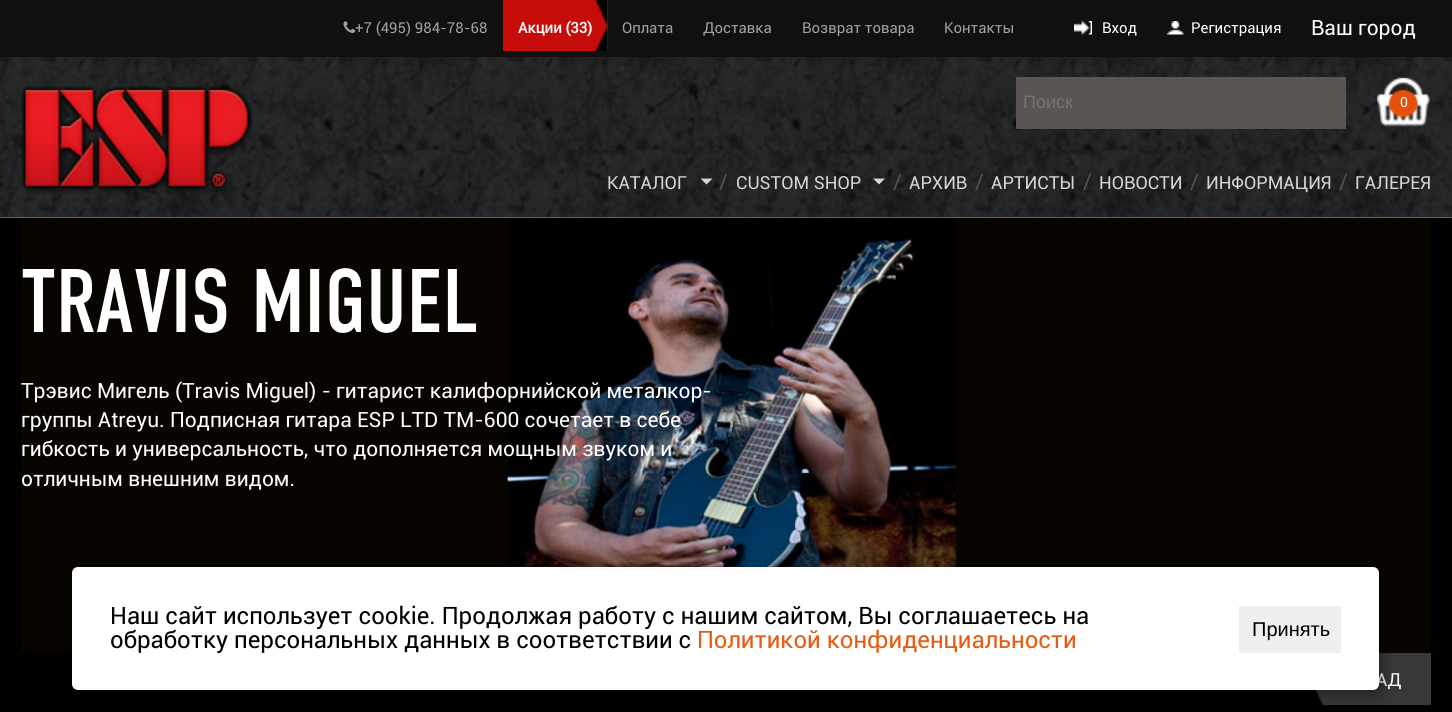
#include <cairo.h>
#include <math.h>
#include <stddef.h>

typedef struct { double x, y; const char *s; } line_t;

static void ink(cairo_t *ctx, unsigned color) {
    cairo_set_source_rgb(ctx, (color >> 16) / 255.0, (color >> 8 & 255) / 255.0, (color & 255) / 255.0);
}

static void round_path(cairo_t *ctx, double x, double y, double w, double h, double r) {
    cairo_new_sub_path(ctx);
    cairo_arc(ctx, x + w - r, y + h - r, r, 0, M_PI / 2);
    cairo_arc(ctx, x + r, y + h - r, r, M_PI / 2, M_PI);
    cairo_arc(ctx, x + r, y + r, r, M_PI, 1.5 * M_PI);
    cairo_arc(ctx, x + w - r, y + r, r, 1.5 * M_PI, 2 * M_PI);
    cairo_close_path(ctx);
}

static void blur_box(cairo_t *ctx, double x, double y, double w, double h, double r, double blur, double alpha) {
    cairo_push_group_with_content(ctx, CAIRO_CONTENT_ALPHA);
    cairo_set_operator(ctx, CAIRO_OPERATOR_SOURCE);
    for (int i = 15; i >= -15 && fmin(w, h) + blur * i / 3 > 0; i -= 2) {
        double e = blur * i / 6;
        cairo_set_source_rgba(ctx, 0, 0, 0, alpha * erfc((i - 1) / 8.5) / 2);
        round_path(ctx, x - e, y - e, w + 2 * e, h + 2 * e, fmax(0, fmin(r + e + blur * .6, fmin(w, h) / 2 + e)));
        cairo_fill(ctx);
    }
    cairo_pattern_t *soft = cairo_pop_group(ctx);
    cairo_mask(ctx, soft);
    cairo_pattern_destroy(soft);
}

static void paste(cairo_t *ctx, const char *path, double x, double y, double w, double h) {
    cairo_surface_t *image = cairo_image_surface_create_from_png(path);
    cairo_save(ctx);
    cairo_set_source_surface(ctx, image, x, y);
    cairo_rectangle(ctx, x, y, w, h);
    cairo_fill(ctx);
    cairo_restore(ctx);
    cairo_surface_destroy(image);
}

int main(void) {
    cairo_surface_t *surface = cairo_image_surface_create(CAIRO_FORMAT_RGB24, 1452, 712);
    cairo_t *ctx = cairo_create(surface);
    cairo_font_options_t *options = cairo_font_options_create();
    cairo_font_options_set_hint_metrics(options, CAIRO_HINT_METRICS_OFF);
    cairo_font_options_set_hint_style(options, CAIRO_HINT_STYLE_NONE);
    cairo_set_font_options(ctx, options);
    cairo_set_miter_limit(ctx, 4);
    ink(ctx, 0x9CA3A7);
    cairo_paint(ctx);
    ink(ctx, 0x101010);
    cairo_rectangle(ctx, 0, 0, 1452, 57);
    cairo_fill(ctx);
    paste(ctx, "media/1.png", 343, 21, 13, 12);
    cairo_select_font_face(ctx, "Roboto", CAIRO_FONT_SLANT_NORMAL, CAIRO_FONT_WEIGHT_NORMAL);
    cairo_set_font_size(ctx, 15);
    ink(ctx, 0x9CA3A7);
    cairo_move_to(ctx, 355, 33);
    cairo_show_text(ctx, "+7 (495) 984-78-68");
    ink(ctx, 0xC50C0A);
    cairo_rectangle(ctx, 503, 0, 105, 51);
    cairo_fill(ctx);
    paste(ctx, "media/2.png", 595, 0, 13, 51);
    cairo_select_font_face(ctx, "Roboto", CAIRO_FONT_SLANT_NORMAL, CAIRO_FONT_WEIGHT_BOLD);
    ink(ctx, 0xFFFFFF);
    cairo_move_to(ctx, 518, 33);
    cairo_show_text(ctx, "Акции (33)");
    cairo_select_font_face(ctx, "Roboto", CAIRO_FONT_SLANT_NORMAL, CAIRO_FONT_WEIGHT_NORMAL);
    ink(ctx, 0x9CA3A7);
    {
        static const line_t items[] = {
            {622, 33, "Оплата"},
            {703, 33, "Доставка"},
            {802, 33, "Возврат товара"},
            {944, 33, "Контакты"},
        };
        for (size_t i = 0; i < sizeof items / sizeof *items; i++) {
            cairo_move_to(ctx, items[i].x, items[i].y);
            cairo_show_text(ctx, items[i].s);
        }
    }
    paste(ctx, "media/3.png", 1074, 21, 18, 14);
    ink(ctx, 0xFFFFFF);
    cairo_move_to(ctx, 1102, 33);
    cairo_show_text(ctx, "Вход");
    paste(ctx, "media/4.png", 1167, 21, 17, 14);
    cairo_move_to(ctx, 1191, 33);
    cairo_show_text(ctx, "Регистрация");
    cairo_set_font_size(ctx, 21);
    cairo_move_to(ctx, 1311, 35);
    cairo_show_text(ctx, "Ваш город");
    paste(ctx, "media/5.png", 0, 57, 1452, 161);
    paste(ctx, "media/6.png", 21, 86, 231, 108);
    ink(ctx, 0x585552);
    cairo_rectangle(ctx, 1016, 77, 330, 52);
    cairo_fill(ctx);
    cairo_select_font_face(ctx, "Liberation Sans", CAIRO_FONT_SLANT_NORMAL, CAIRO_FONT_WEIGHT_NORMAL);
    cairo_set_font_size(ctx, 18);
    ink(ctx, 0x757575);
    cairo_move_to(ctx, 1023, 108);
    cairo_show_text(ctx, "Поиск");
    paste(ctx, "media/7.png", 1377, 77, 53, 50);
    cairo_select_font_face(ctx, "Roboto", CAIRO_FONT_SLANT_NORMAL, CAIRO_FONT_WEIGHT_NORMAL);
    cairo_set_font_size(ctx, 14);
    ink(ctx, 0xFFFFFF);
    cairo_move_to(ctx, 1400, 107);
    cairo_show_text(ctx, "0");
    cairo_set_font_size(ctx, 18);
    ink(ctx, 0xD6D6D6);
    cairo_move_to(ctx, 607, 189);
    cairo_show_text(ctx, "КАТАЛОГ");
    cairo_new_path(ctx);
    cairo_move_to(ctx, 700.5, 178.5);
    cairo_line_to(ctx, 712.5, 178.5);
    cairo_line_to(ctx, 706.5, 184.5);
    cairo_close_path(ctx);
    cairo_fill(ctx);
    cairo_set_font_size(ctx, 21);
    ink(ctx, 0x575454);
    cairo_move_to(ctx, 719, 189);
    cairo_show_text(ctx, "/");
    cairo_set_font_size(ctx, 18);
    ink(ctx, 0xD6D6D6);
    cairo_move_to(ctx, 736, 189);
    cairo_show_text(ctx, "CUSTOM SHOP");
    cairo_new_path(ctx);
    cairo_move_to(ctx, 873, 178.5);
    cairo_line_to(ctx, 885, 178.5);
    cairo_line_to(ctx, 879, 184.5);
    cairo_close_path(ctx);
    cairo_fill(ctx);
    cairo_set_font_size(ctx, 21);
    ink(ctx, 0x575454);
    cairo_move_to(ctx, 893, 189);
    cairo_show_text(ctx, "/");
    cairo_set_font_size(ctx, 18);
    ink(ctx, 0xD6D6D6);
    cairo_move_to(ctx, 909, 189);
    cairo_show_text(ctx, "АРХИВ");
    cairo_set_font_size(ctx, 21);
    ink(ctx, 0x575454);
    cairo_move_to(ctx, 975, 189);
    cairo_show_text(ctx, "/");
    cairo_set_font_size(ctx, 18);
    ink(ctx, 0xD6D6D6);
    cairo_move_to(ctx, 991, 189);
    cairo_show_text(ctx, "АРТИСТЫ");
    cairo_set_font_size(ctx, 21);
    ink(ctx, 0x575454);
    cairo_move_to(ctx, 1083, 189);
    cairo_show_text(ctx, "/");
    cairo_set_font_size(ctx, 18);
    ink(ctx, 0xD6D6D6);
    cairo_move_to(ctx, 1099, 189);
    cairo_show_text(ctx, "НОВОСТИ");
    cairo_set_font_size(ctx, 21);
    ink(ctx, 0x575454);
    cairo_move_to(ctx, 1190, 189);
    cairo_show_text(ctx, "/");
    cairo_set_font_size(ctx, 18);
    ink(ctx, 0xD6D6D6);
    cairo_move_to(ctx, 1206, 189);
    cairo_show_text(ctx, "ИНФОРМАЦИЯ");
    cairo_set_font_size(ctx, 21);
    ink(ctx, 0x575454);
    cairo_move_to(ctx, 1339, 189);
    cairo_show_text(ctx, "/");
    cairo_set_font_size(ctx, 18);
    ink(ctx, 0xD6D6D6);
    cairo_move_to(ctx, 1355, 189);
    cairo_show_text(ctx, "ГАЛЕРЕЯ");
    ink(ctx, 0x000000);
    cairo_rectangle(ctx, 0, 218, 1452, 494);
    cairo_fill(ctx);
    paste(ctx, "media/8.png", 21, 218, 1410, 435);
    cairo_select_font_face(ctx, "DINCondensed", CAIRO_FONT_SLANT_NORMAL, CAIRO_FONT_WEIGHT_NORMAL);
    cairo_set_font_size(ctx, 90);
    ink(ctx, 0xFFFFFF);
    cairo_move_to(ctx, 21, 332);
    cairo_show_text(ctx, "TRAVIS MIGUEL");
    cairo_select_font_face(ctx, "Roboto", CAIRO_FONT_SLANT_NORMAL, CAIRO_FONT_WEIGHT_NORMAL);
    cairo_set_font_size(ctx, 21);
    {
        static const line_t items[] = {
            {21, 398, "Трэвис Мигель (Travis Miguel) - гитарист калифорнийской металкор-"},
            {21, 427, "группы Atreyu. Подписная гитара ESP LTD TM-600 сочетает в себе"},
            {21, 456, "гибкость и универсальность, что дополняется мощным звуком и"},
            {21, 486, "отличным внешним видом."},
        };
        for (size_t i = 0; i < sizeof items / sizeof *items; i++) {
            cairo_move_to(ctx, items[i].x, items[i].y);
            cairo_show_text(ctx, items[i].s);
        }
    }
    ink(ctx, 0x383838);
    cairo_rectangle(ctx, 1324, 653, 107, 52);
    cairo_fill(ctx);
    paste(ctx, "media/9.png", 1309, 690, 16, 15);
    cairo_set_font_size(ctx, 18);
    ink(ctx, 0xFFFFFF);
    cairo_move_to(ctx, 1376, 686);
    cairo_show_text(ctx, "АД");
    ink(ctx, 0x000000);
    blur_box(ctx, 75, 572, 1307, 123, 6, 7.5, 0.4);
    ink(ctx, 0xFFFFFF);
    round_path(ctx, 72, 567, 1307, 123, 6);
    cairo_fill(ctx);
    cairo_set_font_size(ctx, 24);
    ink(ctx, 0x000000);
    cairo_move_to(ctx, 110, 624);
    cairo_show_text(ctx, "Наш сайт использует cookie. Продолжая работу с нашим сайтом, Вы соглашаетесь на");
    cairo_move_to(ctx, 110, 648);
    cairo_show_text(ctx, "обработку персональных данных в соответствии с");
    ink(ctx, 0xE75B12);
    cairo_move_to(ctx, 697, 648);
    cairo_show_text(ctx, "Политикой конфиденциальности");
    ink(ctx, 0xEFEFEF);
    cairo_rectangle(ctx, 1239, 606, 102, 47);
    cairo_fill(ctx);
    cairo_select_font_face(ctx, "Liberation Sans", CAIRO_FONT_SLANT_NORMAL, CAIRO_FONT_WEIGHT_NORMAL);
    cairo_set_font_size(ctx, 20);
    ink(ctx, 0x000000);
    cairo_move_to(ctx, 1252, 636);
    cairo_show_text(ctx, "Принять");
    cairo_surface_write_to_png(surface, "image.png");
    cairo_font_options_destroy(options);
    cairo_destroy(ctx);
    cairo_surface_destroy(surface);
    return 0;
}
